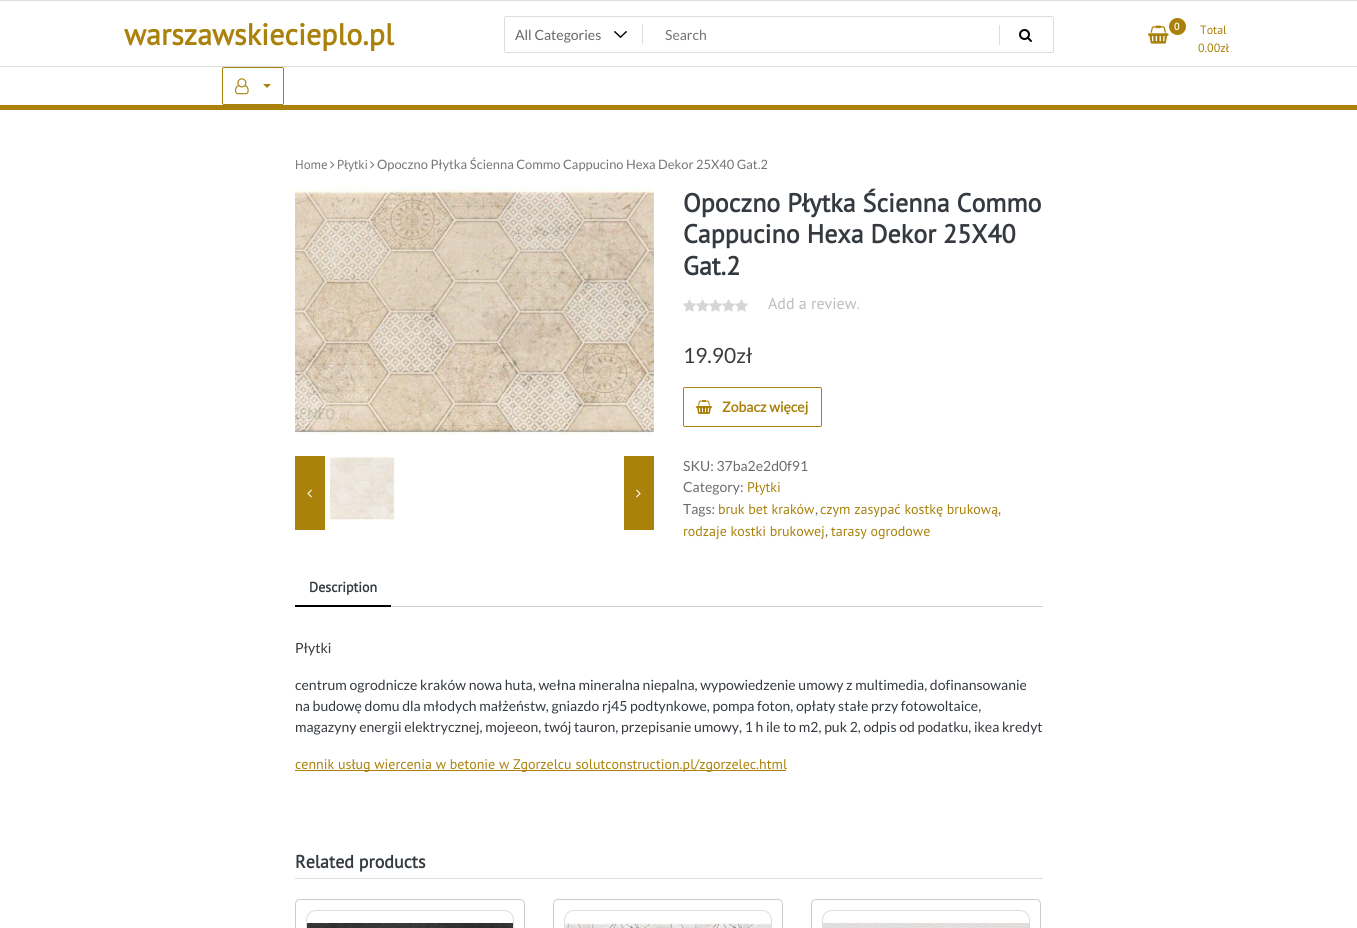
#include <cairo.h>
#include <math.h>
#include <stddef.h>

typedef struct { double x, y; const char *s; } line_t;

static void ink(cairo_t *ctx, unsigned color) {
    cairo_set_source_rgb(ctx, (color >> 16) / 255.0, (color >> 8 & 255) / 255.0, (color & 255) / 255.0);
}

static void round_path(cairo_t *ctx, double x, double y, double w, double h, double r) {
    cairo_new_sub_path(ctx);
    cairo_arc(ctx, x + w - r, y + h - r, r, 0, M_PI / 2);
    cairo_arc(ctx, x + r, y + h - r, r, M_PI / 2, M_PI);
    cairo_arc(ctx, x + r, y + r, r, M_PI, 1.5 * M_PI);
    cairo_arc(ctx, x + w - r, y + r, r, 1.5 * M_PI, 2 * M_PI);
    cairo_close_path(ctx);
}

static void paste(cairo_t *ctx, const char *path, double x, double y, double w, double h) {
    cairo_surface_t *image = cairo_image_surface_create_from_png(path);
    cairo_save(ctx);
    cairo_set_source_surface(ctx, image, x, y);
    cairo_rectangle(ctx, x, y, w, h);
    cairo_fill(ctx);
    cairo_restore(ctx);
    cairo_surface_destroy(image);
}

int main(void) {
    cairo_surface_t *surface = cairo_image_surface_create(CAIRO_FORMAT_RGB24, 1357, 928);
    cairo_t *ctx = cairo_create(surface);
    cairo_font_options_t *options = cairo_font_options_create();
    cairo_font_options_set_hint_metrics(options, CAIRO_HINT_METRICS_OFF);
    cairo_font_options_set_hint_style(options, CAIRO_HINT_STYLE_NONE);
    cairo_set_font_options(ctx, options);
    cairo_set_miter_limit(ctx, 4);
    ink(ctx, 0xFFFFFF);
    cairo_paint(ctx);
    ink(ctx, 0xDDDDDD);
    cairo_rectangle(ctx, 0, 0, 1357, 1);
    cairo_fill(ctx);
    cairo_select_font_face(ctx, "PT Sans", CAIRO_FONT_SLANT_NORMAL, CAIRO_FONT_WEIGHT_BOLD);
    cairo_set_font_size(ctx, 30);
    ink(ctx, 0xA9810B);
    cairo_move_to(ctx, 124, 45);
    cairo_show_text(ctx, "warszawskiecieplo.pl");
    round_path(ctx, 504.5, 16.5, 549, 36, 1.5);
    ink(ctx, 0xDDDDDD);
    cairo_set_line_width(ctx, 1);
    cairo_stroke(ctx);
    ink(ctx, 0xFFFFFF);
    round_path(ctx, 505, 17, 548, 35, 1);
    cairo_fill(ctx);
    paste(ctx, "media/1.png", 614, 31, 13, 7);
    cairo_select_font_face(ctx, "Lato", CAIRO_FONT_SLANT_NORMAL, CAIRO_FONT_WEIGHT_NORMAL);
    cairo_set_font_size(ctx, 14);
    ink(ctx, 0x666666);
    cairo_move_to(ctx, 515, 40);
    cairo_show_text(ctx, "All Categories");
    ink(ctx, 0xDDDDDD);
    cairo_rectangle(ctx, 642, 24, 1, 20);
    cairo_fill(ctx);
    ink(ctx, 0x757575);
    cairo_move_to(ctx, 665, 40);
    cairo_show_text(ctx, "Search");
    ink(ctx, 0xDDDDDD);
    cairo_rectangle(ctx, 999, 25, 1, 20);
    cairo_fill(ctx);
    paste(ctx, "media/2.png", 1019, 29, 13, 13);
    paste(ctx, "media/3.png", 1148, 25, 21, 19);
    ink(ctx, 0xA9810B);
    cairo_arc(ctx, 1177.5, 26.5, 8.5, 0, 2 * M_PI);
    cairo_fill(ctx);
    cairo_select_font_face(ctx, "PT Sans", CAIRO_FONT_SLANT_NORMAL, CAIRO_FONT_WEIGHT_BOLD);
    cairo_set_font_size(ctx, 10);
    ink(ctx, 0xFFFFFF);
    cairo_move_to(ctx, 1174, 30);
    cairo_show_text(ctx, "0");
    cairo_select_font_face(ctx, "PT Sans", CAIRO_FONT_SLANT_NORMAL, CAIRO_FONT_WEIGHT_NORMAL);
    cairo_set_font_size(ctx, 12);
    ink(ctx, 0xA9810B);
    cairo_move_to(ctx, 1200, 34);
    cairo_show_text(ctx, "Total");
    cairo_move_to(ctx, 1198, 52);
    cairo_show_text(ctx, "0.00zł");
    ink(ctx, 0xDDDDDD);
    cairo_rectangle(ctx, 0, 66, 1357, 1);
    cairo_fill(ctx);
    ink(ctx, 0xA9810B);
    cairo_rectangle(ctx, 0, 105, 1357, 5);
    cairo_fill(ctx);
    round_path(ctx, 222.5, 67.5, 61, 37, 1.5);
    cairo_stroke(ctx);
    paste(ctx, "media/4.png", 235, 78, 14, 17);
    cairo_new_path(ctx);
    cairo_move_to(ctx, 263, 84);
    cairo_line_to(ctx, 271, 84);
    cairo_line_to(ctx, 267, 88);
    cairo_close_path(ctx);
    cairo_fill(ctx);
    cairo_set_font_size(ctx, 12.9);
    ink(ctx, 0x757575);
    cairo_move_to(ctx, 295, 169);
    cairo_show_text(ctx, "Home");
    paste(ctx, "media/5.png", 330, 161, 5, 8);
    cairo_move_to(ctx, 337, 169);
    cairo_show_text(ctx, "Płytki");
    paste(ctx, "media/5.png", 370, 161, 5, 8);
    cairo_select_font_face(ctx, "Lato", CAIRO_FONT_SLANT_NORMAL, CAIRO_FONT_WEIGHT_NORMAL);
    cairo_move_to(ctx, 377, 169);
    cairo_show_text(ctx, "Opoczno Płytka Ścienna Commo Cappucino Hexa Dekor 25X40 Gat.2");
    paste(ctx, "media/6.png", 295, 187, 359, 249);
    ink(ctx, 0xA9810B);
    cairo_rectangle(ctx, 295, 456, 30, 74);
    cairo_fill(ctx);
    paste(ctx, "media/7.png", 307, 489, 5, 9);
    cairo_rectangle(ctx, 624, 456, 30, 74);
    cairo_fill(ctx);
    paste(ctx, "media/8.png", 636, 489, 5, 9);
    paste(ctx, "media/9.png", 330, 456, 65, 64);
    cairo_select_font_face(ctx, "PT Sans", CAIRO_FONT_SLANT_NORMAL, CAIRO_FONT_WEIGHT_BOLD);
    cairo_set_font_size(ctx, 26);
    ink(ctx, 0x343A40);
    {
        static const line_t items[] = {
            {683, 212, "Opoczno Płytka Ścienna Commo"},
            {683, 243, "Cappucino Hexa Dekor 25X40"},
            {683, 275, "Gat.2"},
        };
        for (size_t i = 0; i < sizeof items / sizeof *items; i++) {
            cairo_move_to(ctx, items[i].x, items[i].y);
            cairo_show_text(ctx, items[i].s);
        }
    }
    paste(ctx, "media/10.png", 683, 299, 65, 13);
    cairo_select_font_face(ctx, "PT Sans", CAIRO_FONT_SLANT_NORMAL, CAIRO_FONT_WEIGHT_NORMAL);
    cairo_set_font_size(ctx, 16);
    ink(ctx, 0xBDBDBD);
    cairo_move_to(ctx, 768, 309);
    cairo_show_text(ctx, "Add a review.");
    cairo_select_font_face(ctx, "Lato", CAIRO_FONT_SLANT_NORMAL, CAIRO_FONT_WEIGHT_NORMAL);
    cairo_set_font_size(ctx, 21);
    ink(ctx, 0x3C3C3C);
    cairo_move_to(ctx, 683, 363);
    cairo_show_text(ctx, "19.90zł");
    round_path(ctx, 683.5, 387.5, 138, 39, 1.5);
    ink(ctx, 0xA9810B);
    cairo_stroke(ctx);
    paste(ctx, "media/11.png", 696, 400, 16, 14);
    cairo_select_font_face(ctx, "Lato", CAIRO_FONT_SLANT_NORMAL, CAIRO_FONT_WEIGHT_BOLD);
    cairo_set_font_size(ctx, 14);
    cairo_move_to(ctx, 722, 412);
    cairo_show_text(ctx, "Zobacz więcej");
    cairo_select_font_face(ctx, "Lato", CAIRO_FONT_SLANT_NORMAL, CAIRO_FONT_WEIGHT_NORMAL);
    ink(ctx, 0x6C6C6C);
    cairo_move_to(ctx, 683, 471);
    cairo_show_text(ctx, "SKU: 37ba2e2d0f91");
    cairo_move_to(ctx, 683, 492);
    cairo_show_text(ctx, "Category:");
    cairo_select_font_face(ctx, "PT Sans", CAIRO_FONT_SLANT_NORMAL, CAIRO_FONT_WEIGHT_NORMAL);
    ink(ctx, 0xA9810B);
    cairo_move_to(ctx, 747, 492);
    cairo_show_text(ctx, "Płytki");
    cairo_select_font_face(ctx, "Lato", CAIRO_FONT_SLANT_NORMAL, CAIRO_FONT_WEIGHT_NORMAL);
    ink(ctx, 0x6C6C6C);
    cairo_move_to(ctx, 683, 514);
    cairo_show_text(ctx, "Tags:");
    cairo_select_font_face(ctx, "PT Sans", CAIRO_FONT_SLANT_NORMAL, CAIRO_FONT_WEIGHT_NORMAL);
    ink(ctx, 0xA9810B);
    cairo_move_to(ctx, 718, 514);
    cairo_show_text(ctx, "bruk bet kraków");
    cairo_select_font_face(ctx, "Lato", CAIRO_FONT_SLANT_NORMAL, CAIRO_FONT_WEIGHT_NORMAL);
    ink(ctx, 0x6C6C6C);
    cairo_move_to(ctx, 815, 514);
    cairo_show_text(ctx, ",");
    cairo_select_font_face(ctx, "PT Sans", CAIRO_FONT_SLANT_NORMAL, CAIRO_FONT_WEIGHT_NORMAL);
    ink(ctx, 0xA9810B);
    cairo_move_to(ctx, 820, 514);
    cairo_show_text(ctx, "czym zasypać kostkę brukową");
    cairo_select_font_face(ctx, "Lato", CAIRO_FONT_SLANT_NORMAL, CAIRO_FONT_WEIGHT_NORMAL);
    ink(ctx, 0x6C6C6C);
    cairo_move_to(ctx, 998, 514);
    cairo_show_text(ctx, ",");
    cairo_select_font_face(ctx, "PT Sans", CAIRO_FONT_SLANT_NORMAL, CAIRO_FONT_WEIGHT_NORMAL);
    ink(ctx, 0xA9810B);
    cairo_move_to(ctx, 683, 536);
    cairo_show_text(ctx, "rodzaje kostki brukowej");
    cairo_select_font_face(ctx, "Lato", CAIRO_FONT_SLANT_NORMAL, CAIRO_FONT_WEIGHT_NORMAL);
    ink(ctx, 0x6C6C6C);
    cairo_move_to(ctx, 825, 536);
    cairo_show_text(ctx, ",");
    cairo_select_font_face(ctx, "PT Sans", CAIRO_FONT_SLANT_NORMAL, CAIRO_FONT_WEIGHT_NORMAL);
    ink(ctx, 0xA9810B);
    cairo_move_to(ctx, 831, 536);
    cairo_show_text(ctx, "tarasy ogrodowe");
    ink(ctx, 0x000000);
    cairo_rectangle(ctx, 295, 605, 96, 2);
    cairo_fill(ctx);
    cairo_select_font_face(ctx, "PT Sans", CAIRO_FONT_SLANT_NORMAL, CAIRO_FONT_WEIGHT_BOLD);
    ink(ctx, 0x343A40);
    cairo_move_to(ctx, 309, 592);
    cairo_show_text(ctx, "Description");
    ink(ctx, 0xD3CED2);
    cairo_rectangle(ctx, 391, 606, 652, 1);
    cairo_fill(ctx);
    cairo_select_font_face(ctx, "Lato", CAIRO_FONT_SLANT_NORMAL, CAIRO_FONT_WEIGHT_NORMAL);
    ink(ctx, 0x343A40);
    {
        static const line_t items[] = {
            {295, 653, "Płytki"},
            {295, 690, "centrum ogrodnicze kraków nowa huta, wełna mineralna niepalna, wypowiedzenie umowy z multimedia, dofinansowanie"},
            {295, 711, "na budowę domu dla młodych małżeństw, gniazdo rj45 podtynkowe, pompa foton, opłaty stałe przy fotowoltaice,"},
            {295, 732, "magazyny energii elektrycznej, mojeeon, twój tauron, przepisanie umowy, 1 h ile to m2, puk 2, odpis od podatku, ikea kredyt"},
        };
        for (size_t i = 0; i < sizeof items / sizeof *items; i++) {
            cairo_move_to(ctx, items[i].x, items[i].y);
            cairo_show_text(ctx, items[i].s);
        }
    }
    ink(ctx, 0xA9810B);
    cairo_rectangle(ctx, 295, 770, 491, 1);
    cairo_fill(ctx);
    cairo_select_font_face(ctx, "PT Sans", CAIRO_FONT_SLANT_NORMAL, CAIRO_FONT_WEIGHT_NORMAL);
    cairo_move_to(ctx, 295, 769);
    cairo_show_text(ctx, "cennik usług wiercenia w betonie w Zgorzelcu solutconstruction.pl/zgorzelec.html");
    ink(ctx, 0xDDDDDD);
    cairo_rectangle(ctx, 295, 878, 748, 1);
    cairo_fill(ctx);
    cairo_select_font_face(ctx, "PT Sans", CAIRO_FONT_SLANT_NORMAL, CAIRO_FONT_WEIGHT_BOLD);
    cairo_set_font_size(ctx, 18);
    ink(ctx, 0x343A40);
    cairo_move_to(ctx, 295, 868);
    cairo_show_text(ctx, "Related products");
    round_path(ctx, 295.5, 899.5, 229, 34, 4.5);
    ink(ctx, 0xCCCCCC);
    cairo_stroke(ctx);
    round_path(ctx, 306.5, 910.5, 207, 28, 9.5);
    ink(ctx, 0xDDDDDD);
    cairo_stroke(ctx);
    paste(ctx, "media/12.png", 307, 923, 206, 5);
    round_path(ctx, 553.5, 899.5, 229, 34, 4.5);
    ink(ctx, 0xCCCCCC);
    cairo_stroke(ctx);
    round_path(ctx, 564.5, 910.5, 207, 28, 9.5);
    ink(ctx, 0xDDDDDD);
    cairo_stroke(ctx);
    paste(ctx, "media/13.png", 565, 923, 206, 5);
    round_path(ctx, 811.5, 899.5, 229, 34, 4.5);
    ink(ctx, 0xCCCCCC);
    cairo_stroke(ctx);
    round_path(ctx, 822.5, 910.5, 207, 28, 9.5);
    ink(ctx, 0xDDDDDD);
    cairo_stroke(ctx);
    paste(ctx, "media/14.png", 823, 923, 206, 5);
    cairo_surface_write_to_png(surface, "image.png");
    cairo_font_options_destroy(options);
    cairo_destroy(ctx);
    cairo_surface_destroy(surface);
    return 0;
}
